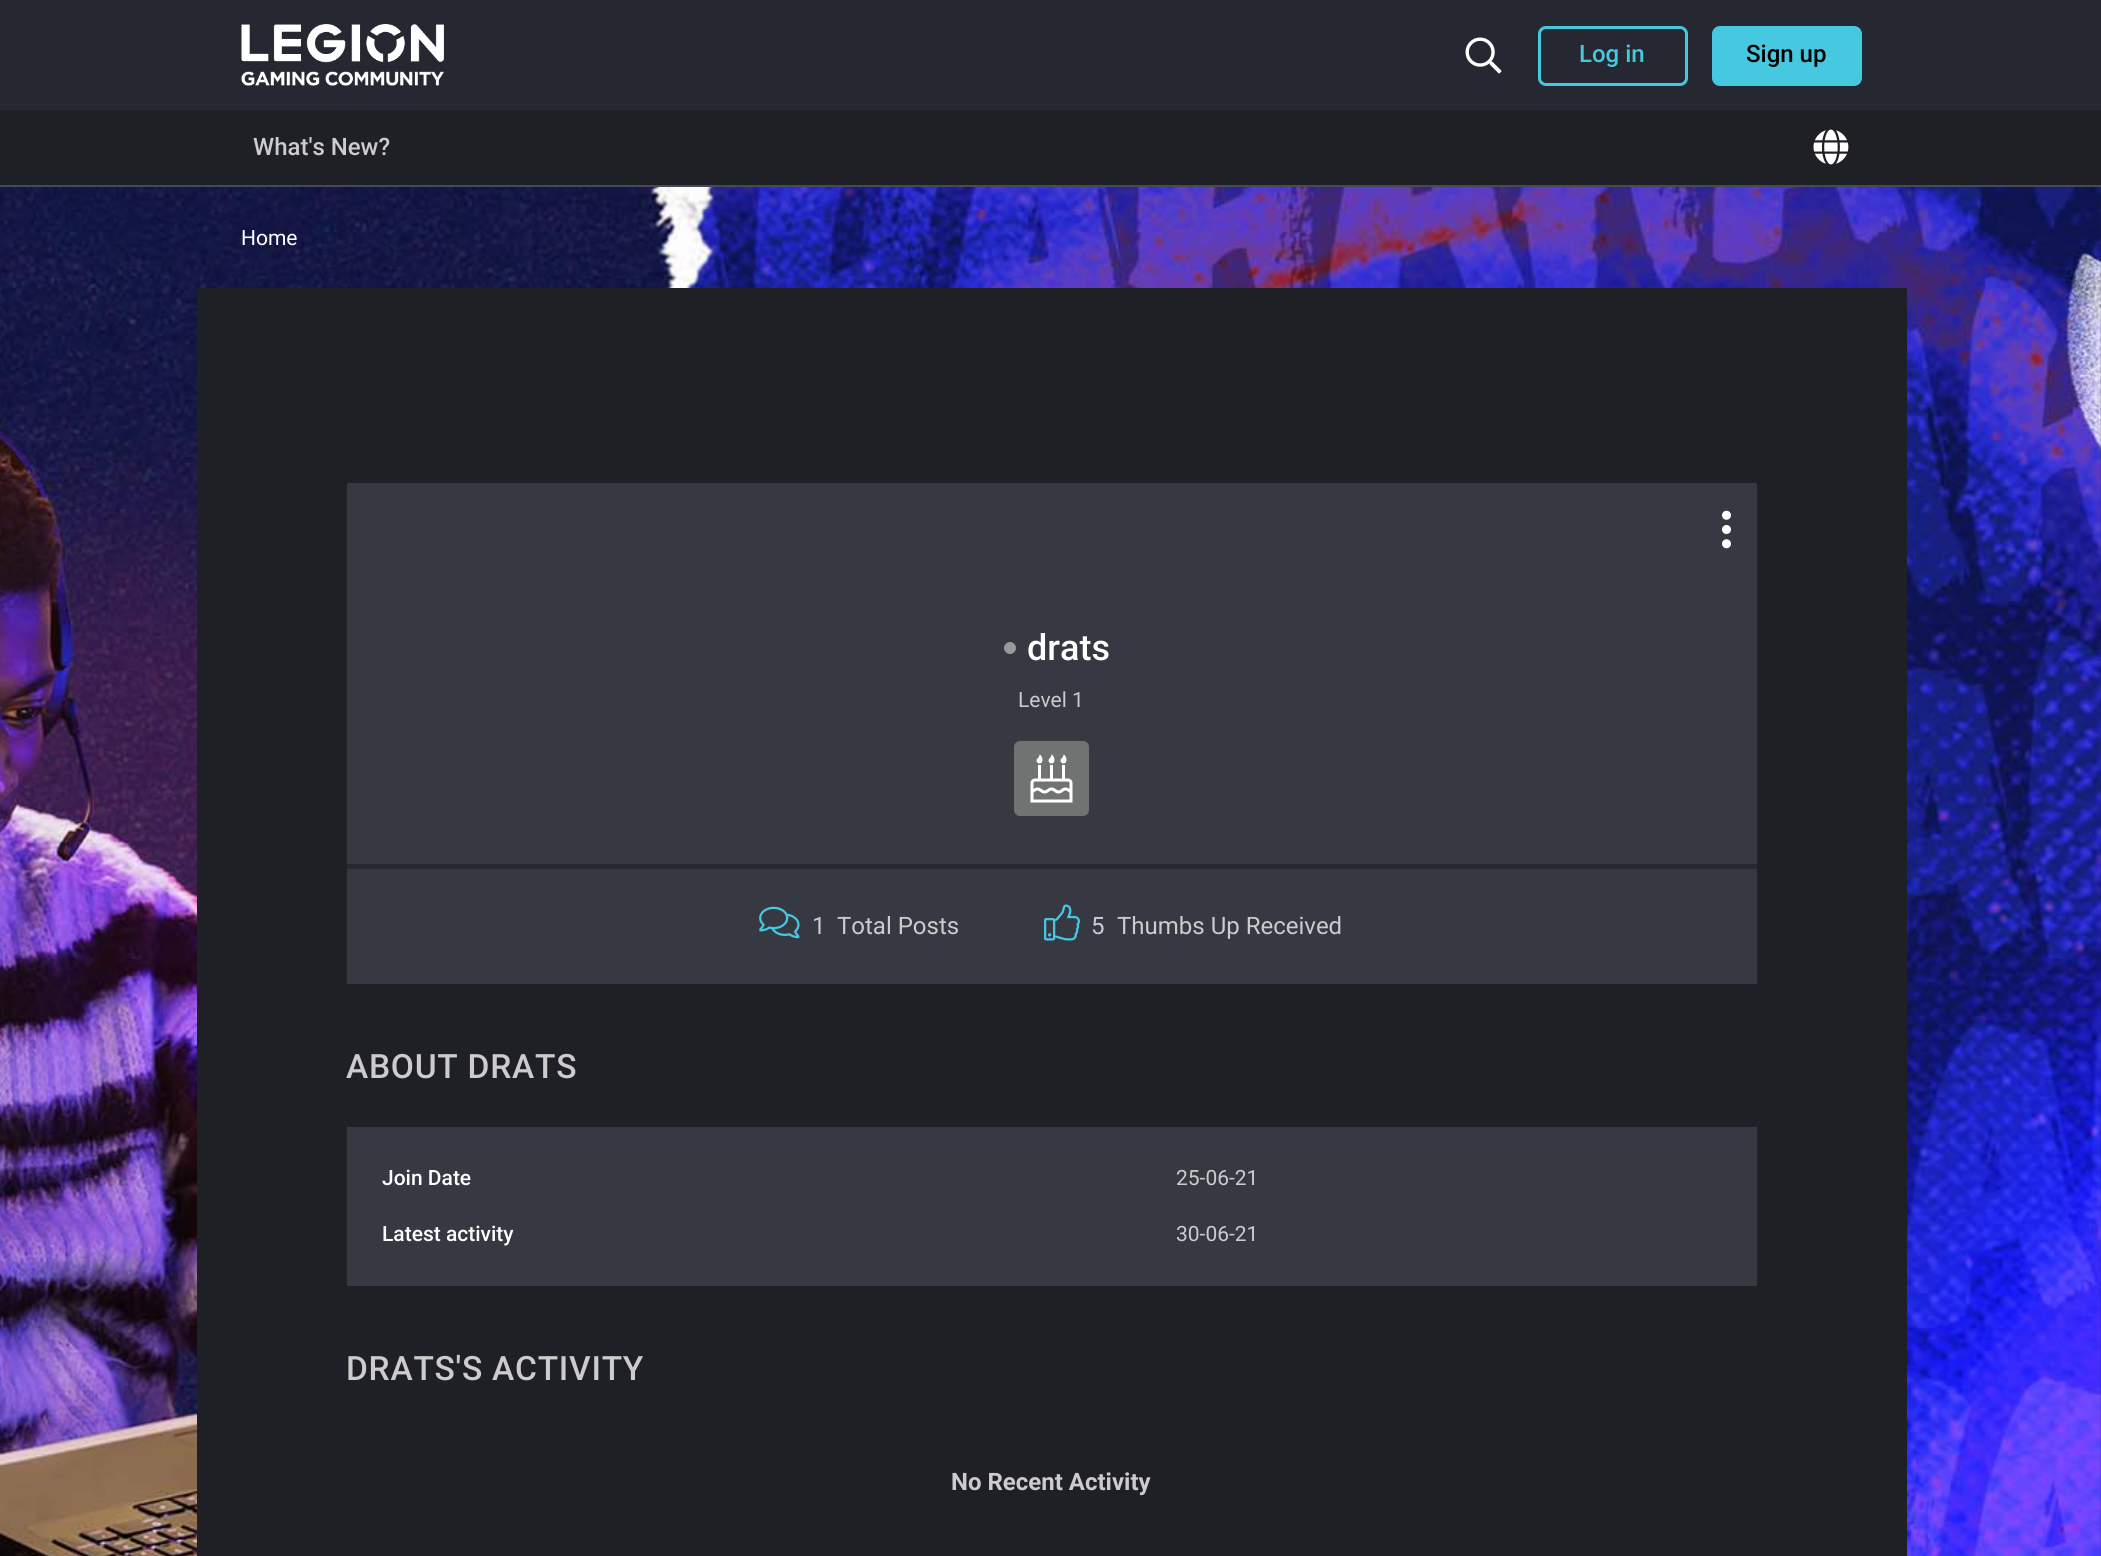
#include <cairo.h>
#include <math.h>
#include <stddef.h>


static void ink(cairo_t *ctx, unsigned color) {
    cairo_set_source_rgb(ctx, (color >> 16) / 255.0, (color >> 8 & 255) / 255.0, (color & 255) / 255.0);
}

static void write_spaced(cairo_t *ctx, double x, double y, const char *s, double letter, double word) {
    cairo_move_to(ctx, x, y);
    while (*s) {
        char ch[5] = {0};
        int n = 0;
        do ch[n++] = *s++; while ((*s & 0xC0) == 0x80);
        cairo_show_text(ctx, ch);
        cairo_rel_move_to(ctx, letter + word * (*ch == ' '), 0);
    }
}

static void round_path(cairo_t *ctx, double x, double y, double w, double h, double r) {
    cairo_new_sub_path(ctx);
    cairo_arc(ctx, x + w - r, y + h - r, r, 0, M_PI / 2);
    cairo_arc(ctx, x + r, y + h - r, r, M_PI / 2, M_PI);
    cairo_arc(ctx, x + r, y + r, r, M_PI, 1.5 * M_PI);
    cairo_arc(ctx, x + w - r, y + r, r, 1.5 * M_PI, 2 * M_PI);
    cairo_close_path(ctx);
}

static void paste(cairo_t *ctx, const char *path, double x, double y, double w, double h) {
    cairo_surface_t *image = cairo_image_surface_create_from_png(path);
    cairo_save(ctx);
    cairo_set_source_surface(ctx, image, x, y);
    cairo_rectangle(ctx, x, y, w, h);
    cairo_fill(ctx);
    cairo_restore(ctx);
    cairo_surface_destroy(image);
}

int main(void) {
    cairo_surface_t *surface = cairo_image_surface_create(CAIRO_FORMAT_RGB24, 2101, 1556);
    cairo_t *ctx = cairo_create(surface);
    cairo_font_options_t *options = cairo_font_options_create();
    cairo_font_options_set_hint_metrics(options, CAIRO_HINT_METRICS_OFF);
    cairo_font_options_set_hint_style(options, CAIRO_HINT_STYLE_NONE);
    cairo_set_font_options(ctx, options);
    cairo_set_miter_limit(ctx, 4);
    ink(ctx, 0x252830);
    cairo_paint(ctx);
    paste(ctx, "media/1.png", 0, 187, 2101, 1369);
    paste(ctx, "media/2.png", 241, 24, 203, 62);
    paste(ctx, "media/3.png", 1465, 37, 37, 37);
    round_path(ctx, 1539.5, 27.5, 147, 57, 6.5);
    ink(ctx, 0x46C8E1);
    cairo_set_line_width(ctx, 3);
    cairo_stroke(ctx);
    cairo_select_font_face(ctx, "Roboto Medium", CAIRO_FONT_SLANT_NORMAL, CAIRO_FONT_WEIGHT_NORMAL);
    cairo_set_font_size(ctx, 24);
    cairo_move_to(ctx, 1579, 62);
    cairo_show_text(ctx, "Log in");
    round_path(ctx, 1713.5, 27.5, 147, 57, 6.5);
    cairo_fill_preserve(ctx);
    cairo_stroke(ctx);
    ink(ctx, 0x000000);
    cairo_move_to(ctx, 1746, 62);
    cairo_show_text(ctx, "Sign up");
    ink(ctx, 0x1F2026);
    cairo_rectangle(ctx, 0, 110, 2101, 75);
    cairo_fill(ctx);
    ink(ctx, 0x454A58);
    cairo_rectangle(ctx, 0, 185, 2101, 2);
    cairo_fill(ctx);
    ink(ctx, 0xCCCCCC);
    cairo_move_to(ctx, 253, 155);
    cairo_show_text(ctx, "What's New?");
    paste(ctx, "media/4.png", 1813, 129, 36, 36);
    cairo_select_font_face(ctx, "Roboto", CAIRO_FONT_SLANT_NORMAL, CAIRO_FONT_WEIGHT_NORMAL);
    cairo_set_font_size(ctx, 21);
    ink(ctx, 0xFFFFFF);
    cairo_move_to(ctx, 241, 245);
    cairo_show_text(ctx, "Home");
    ink(ctx, 0x1F2026);
    cairo_rectangle(ctx, 197, 288, 1710, 1268);
    cairo_fill(ctx);
    ink(ctx, 0x363942);
    cairo_rectangle(ctx, 347, 483, 1410, 501);
    cairo_fill(ctx);
    paste(ctx, "media/5.png", 1722, 510, 9, 39);
    ink(ctx, 0x999999);
    cairo_arc(ctx, 1010, 648, 6, 0, 2 * M_PI);
    cairo_fill(ctx);
    cairo_select_font_face(ctx, "Roboto Medium", CAIRO_FONT_SLANT_NORMAL, CAIRO_FONT_WEIGHT_NORMAL);
    cairo_set_font_size(ctx, 36);
    ink(ctx, 0xFFFFFF);
    cairo_move_to(ctx, 1027, 660);
    cairo_show_text(ctx, "drats");
    cairo_select_font_face(ctx, "Roboto", CAIRO_FONT_SLANT_NORMAL, CAIRO_FONT_WEIGHT_NORMAL);
    cairo_set_font_size(ctx, 21);
    ink(ctx, 0xCCCCCC);
    cairo_move_to(ctx, 1018, 707);
    cairo_show_text(ctx, "Level 1");
    ink(ctx, 0x717372);
    round_path(ctx, 1014, 741, 75, 75, 6);
    cairo_fill(ctx);
    paste(ctx, "media/6.png", 1030, 754, 43, 49);
    ink(ctx, 0x252830);
    cairo_rectangle(ctx, 347, 864, 1410, 5);
    cairo_fill(ctx);
    paste(ctx, "media/7.png", 759, 906, 41, 33);
    cairo_set_font_size(ctx, 24);
    ink(ctx, 0xCCCCCC);
    cairo_move_to(ctx, 812, 934);
    cairo_show_text(ctx, "1");
    cairo_move_to(ctx, 837, 934);
    cairo_show_text(ctx, "Total Posts");
    paste(ctx, "media/8.png", 1044, 904, 36, 37);
    cairo_move_to(ctx, 1091, 934);
    cairo_show_text(ctx, "5");
    cairo_move_to(ctx, 1117, 934);
    cairo_show_text(ctx, "Thumbs Up Received");
    cairo_select_font_face(ctx, "Roboto Medium", CAIRO_FONT_SLANT_NORMAL, CAIRO_FONT_WEIGHT_NORMAL);
    cairo_set_font_size(ctx, 33.5);
    write_spaced(ctx, 346, 1078, "ABOUT DRATS", 0.75, 0);
    ink(ctx, 0x363942);
    cairo_rectangle(ctx, 347, 1127, 1410, 159);
    cairo_fill(ctx);
    cairo_set_font_size(ctx, 21);
    ink(ctx, 0xFFFFFF);
    cairo_move_to(ctx, 382, 1185);
    cairo_show_text(ctx, "Join Date");
    cairo_select_font_face(ctx, "Roboto", CAIRO_FONT_SLANT_NORMAL, CAIRO_FONT_WEIGHT_NORMAL);
    ink(ctx, 0xCCCCCC);
    cairo_move_to(ctx, 1176, 1185);
    cairo_show_text(ctx, "25-06-21");
    cairo_select_font_face(ctx, "Roboto Medium", CAIRO_FONT_SLANT_NORMAL, CAIRO_FONT_WEIGHT_NORMAL);
    ink(ctx, 0xFFFFFF);
    cairo_move_to(ctx, 382, 1241);
    cairo_show_text(ctx, "Latest activity");
    cairo_select_font_face(ctx, "Roboto", CAIRO_FONT_SLANT_NORMAL, CAIRO_FONT_WEIGHT_NORMAL);
    ink(ctx, 0xCCCCCC);
    cairo_move_to(ctx, 1176, 1241);
    cairo_show_text(ctx, "30-06-21");
    cairo_select_font_face(ctx, "Roboto Medium", CAIRO_FONT_SLANT_NORMAL, CAIRO_FONT_WEIGHT_NORMAL);
    cairo_set_font_size(ctx, 33.5);
    write_spaced(ctx, 346, 1380, "DRATS'S ACTIVITY", 0.75, 0);
    cairo_select_font_face(ctx, "Roboto", CAIRO_FONT_SLANT_NORMAL, CAIRO_FONT_WEIGHT_BOLD);
    cairo_set_font_size(ctx, 24);
    cairo_move_to(ctx, 951, 1490);
    cairo_show_text(ctx, "No Recent Activity");
    cairo_surface_write_to_png(surface, "image.png");
    cairo_font_options_destroy(options);
    cairo_destroy(ctx);
    cairo_surface_destroy(surface);
    return 0;
}
